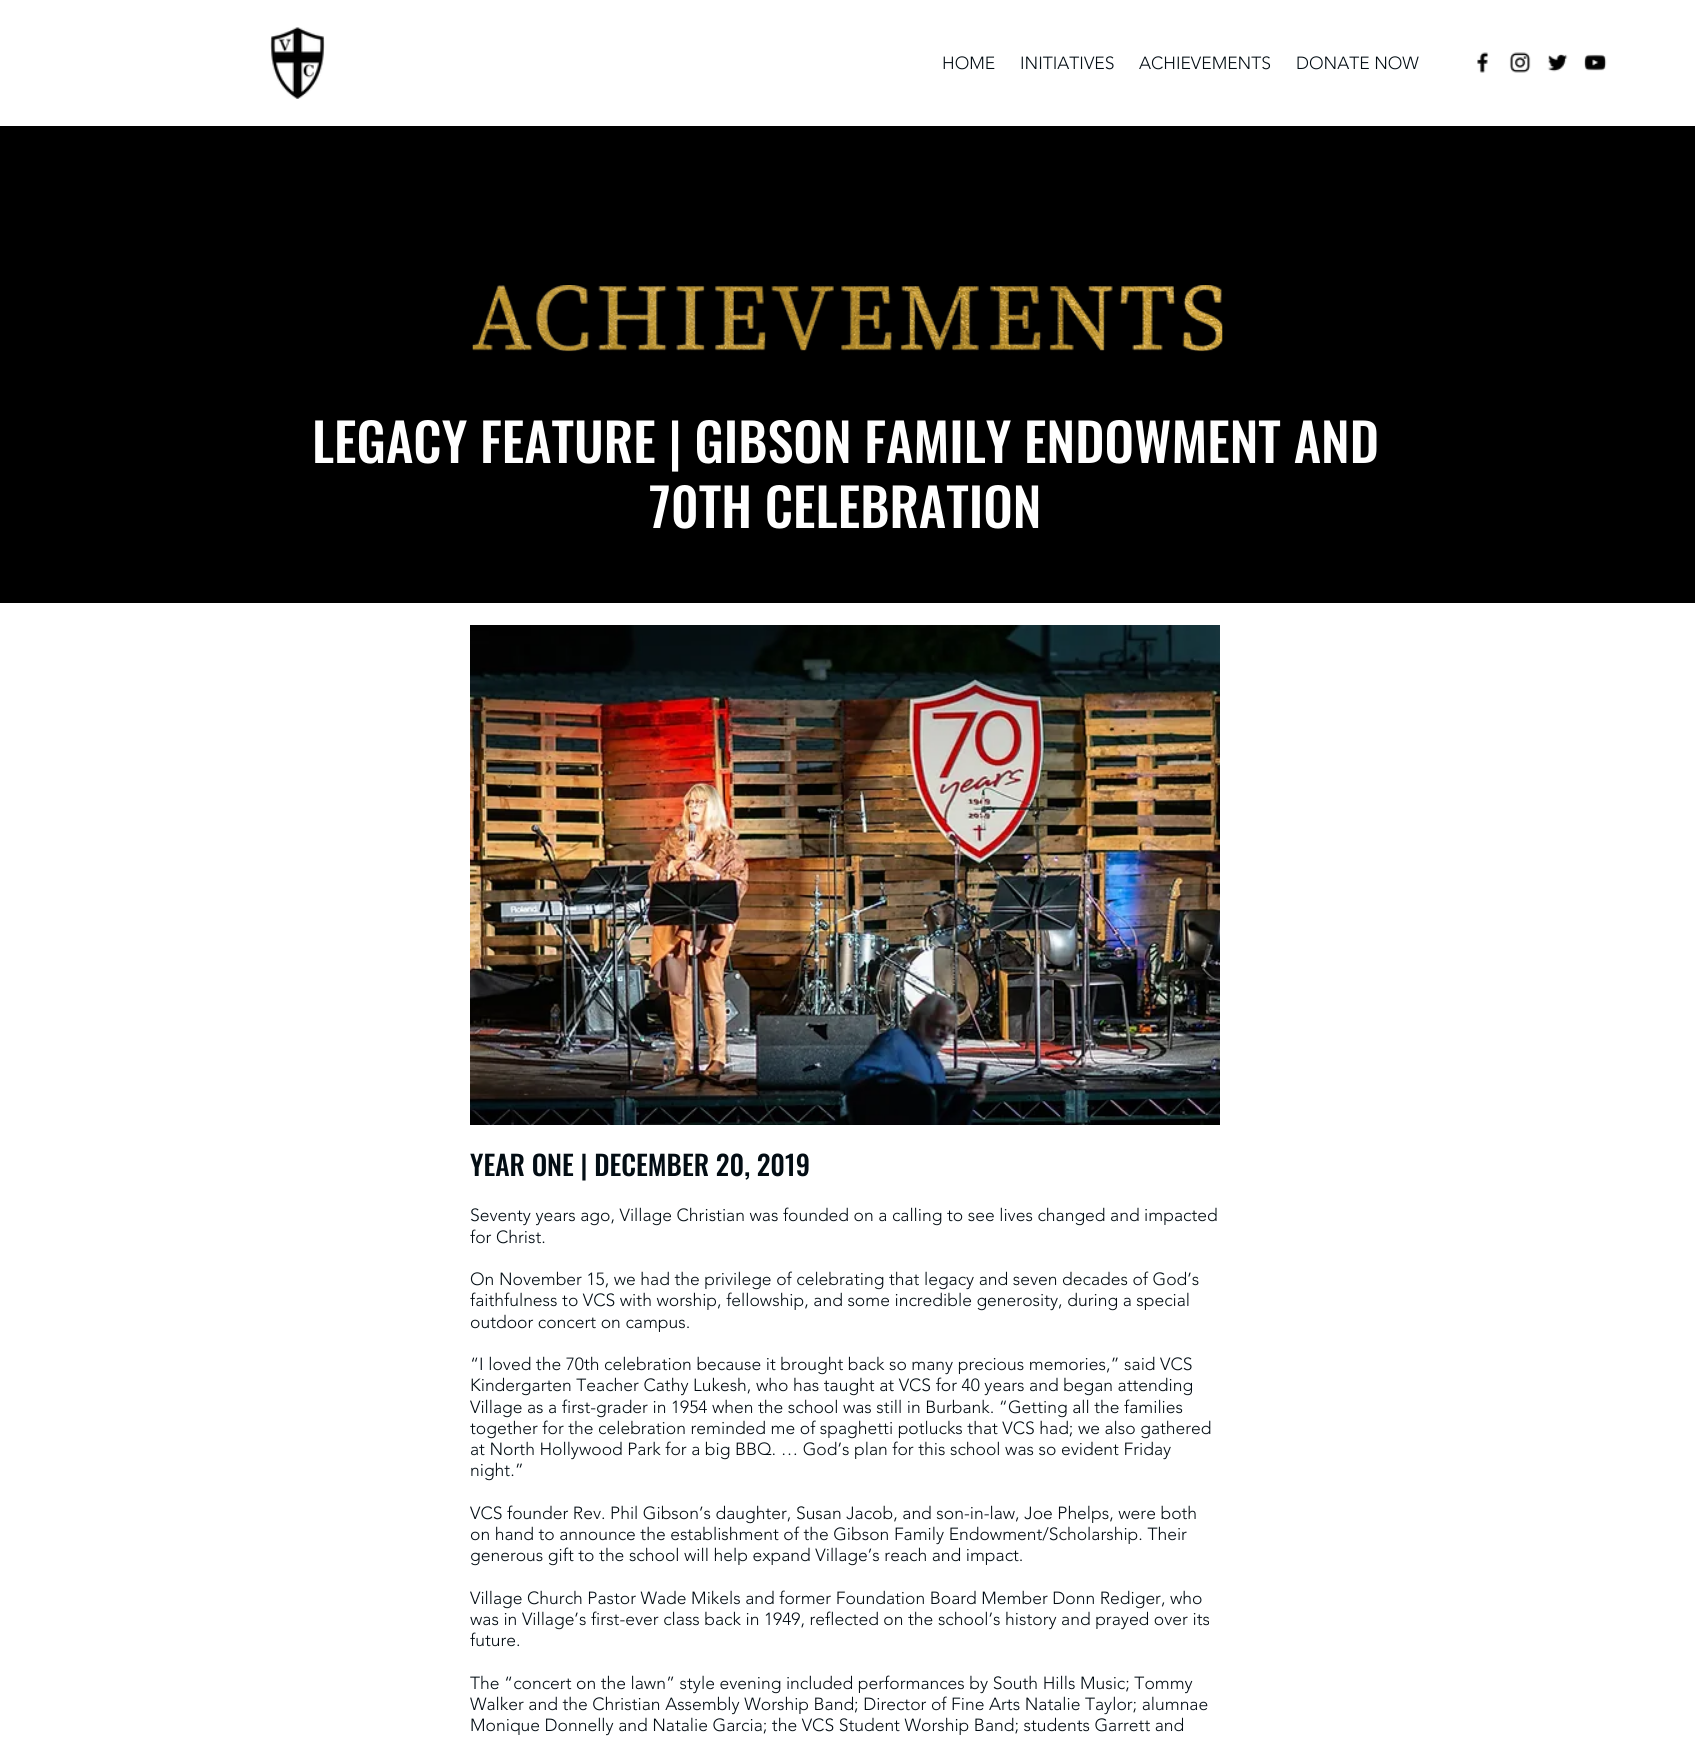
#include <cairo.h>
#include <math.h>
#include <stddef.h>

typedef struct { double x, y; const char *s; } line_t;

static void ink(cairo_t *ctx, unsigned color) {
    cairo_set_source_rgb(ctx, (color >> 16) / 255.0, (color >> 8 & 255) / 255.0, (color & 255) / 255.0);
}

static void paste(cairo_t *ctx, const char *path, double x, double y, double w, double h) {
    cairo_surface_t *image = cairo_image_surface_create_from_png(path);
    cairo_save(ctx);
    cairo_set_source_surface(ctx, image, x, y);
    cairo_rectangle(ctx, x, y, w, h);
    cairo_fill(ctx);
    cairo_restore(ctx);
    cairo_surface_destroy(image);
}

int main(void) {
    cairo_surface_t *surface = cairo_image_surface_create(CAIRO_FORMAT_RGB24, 1695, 1746);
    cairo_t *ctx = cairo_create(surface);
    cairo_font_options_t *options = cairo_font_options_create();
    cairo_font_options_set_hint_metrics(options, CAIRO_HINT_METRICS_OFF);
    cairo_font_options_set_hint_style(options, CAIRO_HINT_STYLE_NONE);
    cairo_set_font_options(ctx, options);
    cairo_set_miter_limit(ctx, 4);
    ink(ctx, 0xFFFFFF);
    cairo_paint(ctx);
    paste(ctx, "media/1.png", 270, 27, 55, 72);
    cairo_select_font_face(ctx, "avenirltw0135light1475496 Light", CAIRO_FONT_SLANT_NORMAL, CAIRO_FONT_WEIGHT_NORMAL);
    cairo_set_font_size(ctx, 17.5);
    ink(ctx, 0x030D14);
    {
        static const line_t items[] = {
            {942, 69, "HOME"},
            {1020, 69, "INITIATIVES"},
            {1139, 69, "ACHIEVEMENTS"},
            {1296, 69, "DONATE NOW"},
        };
        for (size_t i = 0; i < sizeof items / sizeof *items; i++) {
            cairo_move_to(ctx, items[i].x, items[i].y);
            cairo_show_text(ctx, items[i].s);
        }
    }
    paste(ctx, "media/2.png", 1477, 52, 12, 21);
    paste(ctx, "media/3.png", 1509, 52, 22, 21);
    paste(ctx, "media/4.png", 1547, 54, 21, 18);
    paste(ctx, "media/5.png", 1584, 54, 23, 17);
    ink(ctx, 0x000000);
    cairo_rectangle(ctx, 0, 126, 1695, 477);
    cairo_fill(ctx);
    paste(ctx, "media/6.png", 472, 285, 751, 67);
    cairo_select_font_face(ctx, "Oswald Medium", CAIRO_FONT_SLANT_NORMAL, CAIRO_FONT_WEIGHT_NORMAL);
    cairo_set_font_size(ctx, 52.5);
    ink(ctx, 0xFFFFFF);
    cairo_move_to(ctx, 312, 463);
    cairo_show_text(ctx, "LEGACY FEATURE | GIBSON FAMILY ENDOWMENT AND");
    cairo_move_to(ctx, 649, 528);
    cairo_show_text(ctx, "70TH CELEBRATION");
    paste(ctx, "media/7.png", 470, 625, 750, 500);
    cairo_set_font_size(ctx, 27.5);
    ink(ctx, 0x030D14);
    cairo_move_to(ctx, 470, 1176);
    cairo_show_text(ctx, "YEAR ONE | DECEMBER 20, 2019");
    cairo_select_font_face(ctx, "avenirltw0135light1475496 Light", CAIRO_FONT_SLANT_NORMAL, CAIRO_FONT_WEIGHT_NORMAL);
    cairo_set_font_size(ctx, 17.5);
    {
        static const line_t items[] = {
            {470, 1221, "Seventy years ago, Village Christian was founded on a calling to see lives changed and impacted"},
            {470, 1243, "for Christ."},
            {470, 1285, "On November 15, we had the privilege of celebrating that legacy and seven decades of God’s"},
            {470, 1306, "faithfulness to VCS with worship, fellowship, and some incredible generosity, during a special"},
            {470, 1328, "outdoor concert on campus."},
            {470, 1370, "“I loved the 70th celebration because it brought back so many precious memories,” said VCS"},
            {470, 1391, "Kindergarten Teacher Cathy Lukesh, who has taught at VCS for 40 years and began attending"},
            {470, 1413, "Village as a first-grader in 1954 when the school was still in Burbank. “Getting all the families"},
            {470, 1434, "together for the celebration reminded me of spaghetti potlucks that VCS had; we also gathered"},
            {470, 1455, "at North Hollywood Park for a big BBQ. … God’s plan for this school was so evident Friday"},
            {470, 1476, "night.”"},
            {470, 1519, "VCS founder Rev. Phil Gibson’s daughter, Susan Jacob, and son-in-law, Joe Phelps, were both"},
            {470, 1540, "on hand to announce the establishment of the Gibson Family Endowment/Scholarship. Their"},
            {470, 1561, "generous gift to the school will help expand Village’s reach and impact."},
            {470, 1604, "Village Church Pastor Wade Mikels and former Foundation Board Member Donn Rediger, who"},
            {470, 1625, "was in Village’s first-ever class back in 1949, reflected on the school’s history and prayed over its"},
            {470, 1646, "future."},
            {470, 1689, "The “concert on the lawn” style evening included performances by South Hills Music; Tommy"},
            {470, 1710, "Walker and the Christian Assembly Worship Band; Director of Fine Arts Natalie Taylor; alumnae"},
            {470, 1731, "Monique Donnelly and Natalie Garcia; the VCS Student Worship Band; students Garrett and"},
        };
        for (size_t i = 0; i < sizeof items / sizeof *items; i++) {
            cairo_move_to(ctx, items[i].x, items[i].y);
            cairo_show_text(ctx, items[i].s);
        }
    }
    cairo_surface_write_to_png(surface, "image.png");
    cairo_font_options_destroy(options);
    cairo_destroy(ctx);
    cairo_surface_destroy(surface);
    return 0;
}
